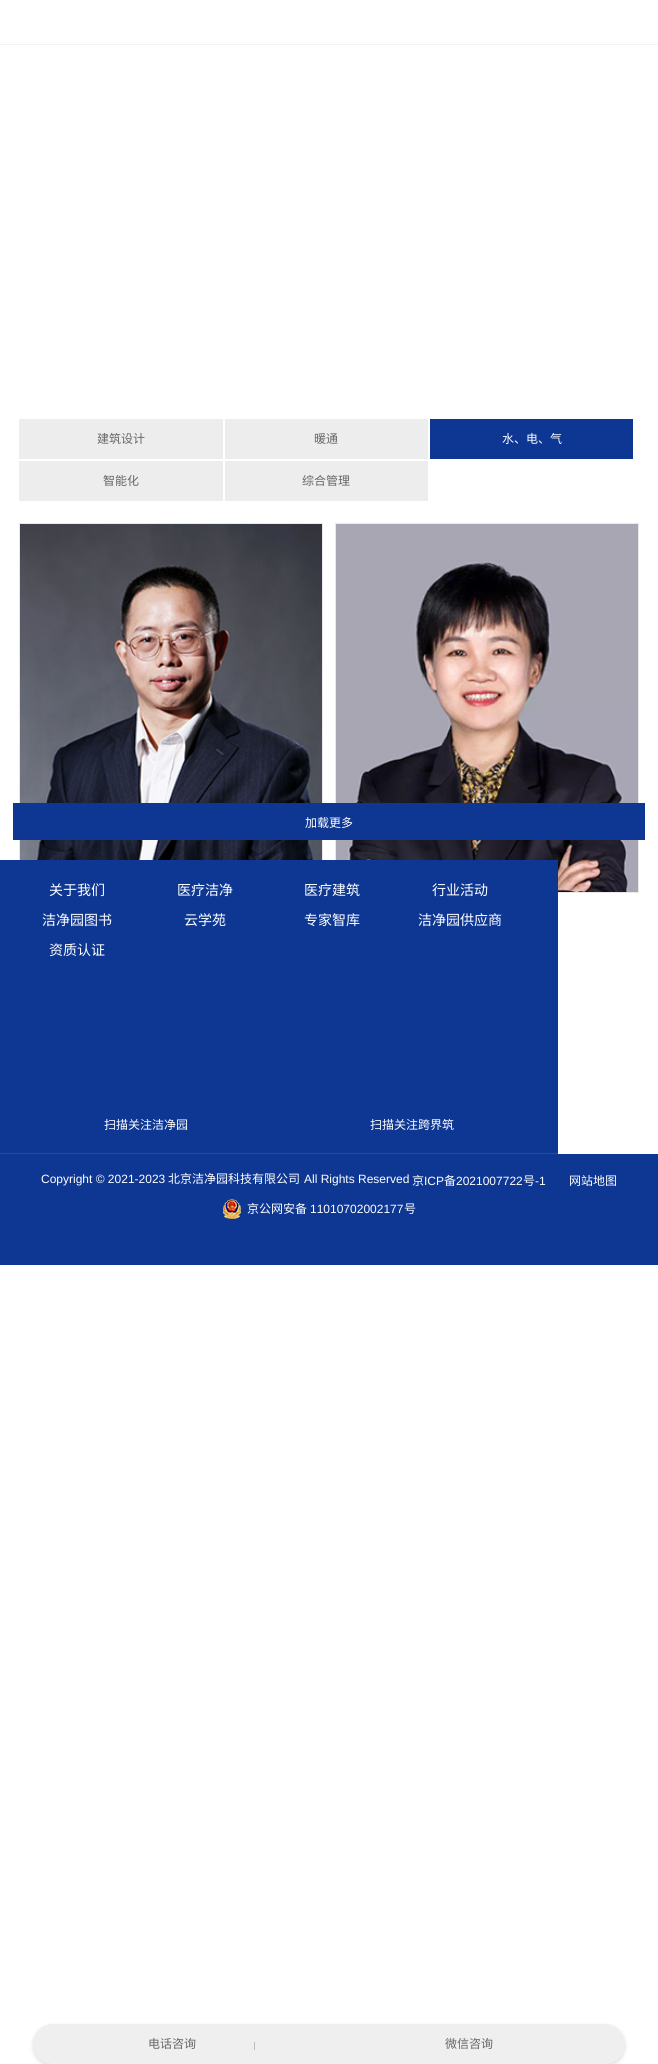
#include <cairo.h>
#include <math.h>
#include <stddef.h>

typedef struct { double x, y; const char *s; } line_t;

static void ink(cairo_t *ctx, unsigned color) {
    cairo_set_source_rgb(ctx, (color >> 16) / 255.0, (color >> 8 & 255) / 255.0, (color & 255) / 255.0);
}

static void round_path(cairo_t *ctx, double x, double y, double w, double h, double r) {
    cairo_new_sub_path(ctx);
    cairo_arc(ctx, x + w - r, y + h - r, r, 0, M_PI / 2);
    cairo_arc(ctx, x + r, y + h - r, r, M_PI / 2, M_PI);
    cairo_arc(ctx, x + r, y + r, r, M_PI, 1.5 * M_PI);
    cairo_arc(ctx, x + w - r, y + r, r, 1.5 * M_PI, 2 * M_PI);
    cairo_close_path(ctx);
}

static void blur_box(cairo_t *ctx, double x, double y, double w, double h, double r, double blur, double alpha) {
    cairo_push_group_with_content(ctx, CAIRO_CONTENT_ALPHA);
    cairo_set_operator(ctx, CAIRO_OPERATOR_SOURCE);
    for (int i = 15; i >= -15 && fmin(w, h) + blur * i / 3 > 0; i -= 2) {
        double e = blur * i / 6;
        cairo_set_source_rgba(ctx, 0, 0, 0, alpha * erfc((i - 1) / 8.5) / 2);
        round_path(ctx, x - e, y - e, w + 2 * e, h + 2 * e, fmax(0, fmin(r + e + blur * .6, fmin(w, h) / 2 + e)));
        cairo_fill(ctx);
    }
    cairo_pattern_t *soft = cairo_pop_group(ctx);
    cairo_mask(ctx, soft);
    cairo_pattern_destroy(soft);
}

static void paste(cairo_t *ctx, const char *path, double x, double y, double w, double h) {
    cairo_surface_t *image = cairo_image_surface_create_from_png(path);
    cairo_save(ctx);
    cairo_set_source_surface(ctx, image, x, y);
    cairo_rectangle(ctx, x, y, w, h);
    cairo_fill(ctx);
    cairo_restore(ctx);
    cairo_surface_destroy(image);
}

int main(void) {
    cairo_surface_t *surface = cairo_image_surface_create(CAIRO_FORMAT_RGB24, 658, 2064);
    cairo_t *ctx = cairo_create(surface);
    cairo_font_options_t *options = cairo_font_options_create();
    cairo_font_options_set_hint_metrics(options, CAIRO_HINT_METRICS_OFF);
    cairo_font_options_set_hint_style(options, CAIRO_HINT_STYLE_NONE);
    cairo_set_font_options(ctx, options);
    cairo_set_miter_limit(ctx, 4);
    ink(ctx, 0xFFFFFF);
    cairo_paint(ctx);
    ink(ctx, 0xF2F2F2);
    cairo_rectangle(ctx, 0, 44, 658, 1);
    cairo_fill(ctx);
    ink(ctx, 0xEDEDED);
    cairo_rectangle(ctx, 19, 419, 204, 40);
    cairo_fill(ctx);
    cairo_select_font_face(ctx, "Noto Sans CJK SC", CAIRO_FONT_SLANT_NORMAL, CAIRO_FONT_WEIGHT_NORMAL);
    cairo_set_font_size(ctx, 12);
    ink(ctx, 0x666666);
    cairo_move_to(ctx, 97, 443);
    cairo_show_text(ctx, "建筑设计");
    ink(ctx, 0xEDEDED);
    cairo_rectangle(ctx, 225, 419, 203, 40);
    cairo_fill(ctx);
    ink(ctx, 0x666666);
    cairo_move_to(ctx, 314, 443);
    cairo_show_text(ctx, "暖通");
    ink(ctx, 0x0E3793);
    cairo_rectangle(ctx, 430, 419, 203, 40);
    cairo_fill(ctx);
    ink(ctx, 0xFFFFFF);
    cairo_move_to(ctx, 502, 443);
    cairo_show_text(ctx, "水、电、气");
    ink(ctx, 0xEDEDED);
    cairo_rectangle(ctx, 19, 461, 204, 40);
    cairo_fill(ctx);
    ink(ctx, 0x666666);
    cairo_move_to(ctx, 103, 485);
    cairo_show_text(ctx, "智能化");
    ink(ctx, 0xEDEDED);
    cairo_rectangle(ctx, 225, 461, 203, 40);
    cairo_fill(ctx);
    ink(ctx, 0x666666);
    cairo_move_to(ctx, 302, 485);
    cairo_show_text(ctx, "综合管理");
    cairo_rectangle(ctx, 19.5, 523.5, 303, 369);
    ink(ctx, 0xE9E9E9);
    cairo_set_line_width(ctx, 1);
    cairo_stroke(ctx);
    paste(ctx, "media/1.png", 20, 524, 302, 336);
    cairo_rectangle(ctx, 335.5, 523.5, 303, 369);
    cairo_stroke(ctx);
    paste(ctx, "media/2.png", 336, 524, 302, 368);
    ink(ctx, 0x0E3793);
    cairo_rectangle(ctx, 13, 803, 632, 37);
    cairo_fill(ctx);
    ink(ctx, 0xFFFFFF);
    cairo_move_to(ctx, 305, 827);
    cairo_show_text(ctx, "加载更多");
    ink(ctx, 0x0E3793);
    cairo_rectangle(ctx, 0, 860, 558, 293);
    cairo_fill(ctx);
    ink(ctx, 0x274B9E);
    cairo_rectangle(ctx, 0, 1153, 558, 1);
    cairo_fill(ctx);
    cairo_set_font_size(ctx, 14);
    ink(ctx, 0xFFFFFF);
    {
        static const line_t items[] = {
            {49, 895, "关于我们"},
            {177, 895, "医疗洁净"},
            {304, 895, "医疗建筑"},
            {432, 895, "行业活动"},
            {42, 925, "洁净园图书"},
            {184, 925, "云学苑"},
            {304, 925, "专家智库"},
            {418, 925, "洁净园供应商"},
            {49, 955, "资质认证"},
        };
        for (size_t i = 0; i < sizeof items / sizeof *items; i++) {
            cairo_move_to(ctx, items[i].x, items[i].y);
            cairo_show_text(ctx, items[i].s);
        }
    }
    cairo_set_font_size(ctx, 12);
    cairo_move_to(ctx, 104, 1129);
    cairo_show_text(ctx, "扫描关注洁净园");
    cairo_move_to(ctx, 370, 1129);
    cairo_show_text(ctx, "扫描关注跨界筑");
    ink(ctx, 0x0E3793);
    cairo_rectangle(ctx, 0, 1154, 658, 111);
    cairo_fill(ctx);
    cairo_select_font_face(ctx, "Liberation Sans", CAIRO_FONT_SLANT_NORMAL, CAIRO_FONT_WEIGHT_NORMAL);
    ink(ctx, 0xFFFFFF);
    cairo_move_to(ctx, 41, 1183);
    cairo_show_text(ctx, "Copyright © 2021-2023");
    cairo_select_font_face(ctx, "Noto Sans CJK SC", CAIRO_FONT_SLANT_NORMAL, CAIRO_FONT_WEIGHT_NORMAL);
    cairo_move_to(ctx, 168, 1183);
    cairo_show_text(ctx, "北京洁净园科技有限公司");
    cairo_select_font_face(ctx, "Liberation Sans", CAIRO_FONT_SLANT_NORMAL, CAIRO_FONT_WEIGHT_NORMAL);
    cairo_move_to(ctx, 304, 1183);
    cairo_show_text(ctx, "All Rights Reserved");
    cairo_select_font_face(ctx, "Noto Sans CJK SC", CAIRO_FONT_SLANT_NORMAL, CAIRO_FONT_WEIGHT_NORMAL);
    cairo_move_to(ctx, 412, 1185);
    cairo_show_text(ctx, "京");
    cairo_select_font_face(ctx, "Liberation Sans", CAIRO_FONT_SLANT_NORMAL, CAIRO_FONT_WEIGHT_NORMAL);
    cairo_move_to(ctx, 424, 1185);
    cairo_show_text(ctx, "ICP");
    cairo_select_font_face(ctx, "Noto Sans CJK SC", CAIRO_FONT_SLANT_NORMAL, CAIRO_FONT_WEIGHT_NORMAL);
    cairo_move_to(ctx, 444, 1185);
    cairo_show_text(ctx, "备");
    cairo_select_font_face(ctx, "Liberation Sans", CAIRO_FONT_SLANT_NORMAL, CAIRO_FONT_WEIGHT_NORMAL);
    cairo_move_to(ctx, 456, 1185);
    cairo_show_text(ctx, "2021007722");
    cairo_select_font_face(ctx, "Noto Sans CJK SC", CAIRO_FONT_SLANT_NORMAL, CAIRO_FONT_WEIGHT_NORMAL);
    cairo_move_to(ctx, 523, 1185);
    cairo_show_text(ctx, "号");
    cairo_select_font_face(ctx, "Liberation Sans", CAIRO_FONT_SLANT_NORMAL, CAIRO_FONT_WEIGHT_NORMAL);
    cairo_move_to(ctx, 535, 1185);
    cairo_show_text(ctx, "-1");
    cairo_select_font_face(ctx, "Noto Sans CJK SC", CAIRO_FONT_SLANT_NORMAL, CAIRO_FONT_WEIGHT_NORMAL);
    cairo_move_to(ctx, 569, 1185);
    cairo_show_text(ctx, "网站地图");
    paste(ctx, "media/3.png", 223, 1199, 18, 20);
    cairo_move_to(ctx, 247, 1213);
    cairo_show_text(ctx, "京公网安备");
    cairo_select_font_face(ctx, "Liberation Sans", CAIRO_FONT_SLANT_NORMAL, CAIRO_FONT_WEIGHT_NORMAL);
    cairo_move_to(ctx, 310, 1213);
    cairo_show_text(ctx, "11010702002177");
    cairo_select_font_face(ctx, "Noto Sans CJK SC", CAIRO_FONT_SLANT_NORMAL, CAIRO_FONT_WEIGHT_NORMAL);
    cairo_move_to(ctx, 404, 1213);
    cairo_show_text(ctx, "号");
    ink(ctx, 0xDDDDDD);
    blur_box(ctx, 33, 2026, 592, 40, 20, 2, 1);
    ink(ctx, 0xEFEFEF);
    round_path(ctx, 33, 2024, 592, 40, 20);
    cairo_fill(ctx);
    ink(ctx, 0x666666);
    cairo_move_to(ctx, 148, 2048);
    cairo_show_text(ctx, "电话咨询");
    ink(ctx, 0xB9BAC1);
    cairo_rectangle(ctx, 254, 2042, 1, 8);
    cairo_fill(ctx);
    ink(ctx, 0x666666);
    cairo_move_to(ctx, 445, 2048);
    cairo_show_text(ctx, "微信咨询");
    cairo_surface_write_to_png(surface, "image.png");
    cairo_font_options_destroy(options);
    cairo_destroy(ctx);
    cairo_surface_destroy(surface);
    return 0;
}
